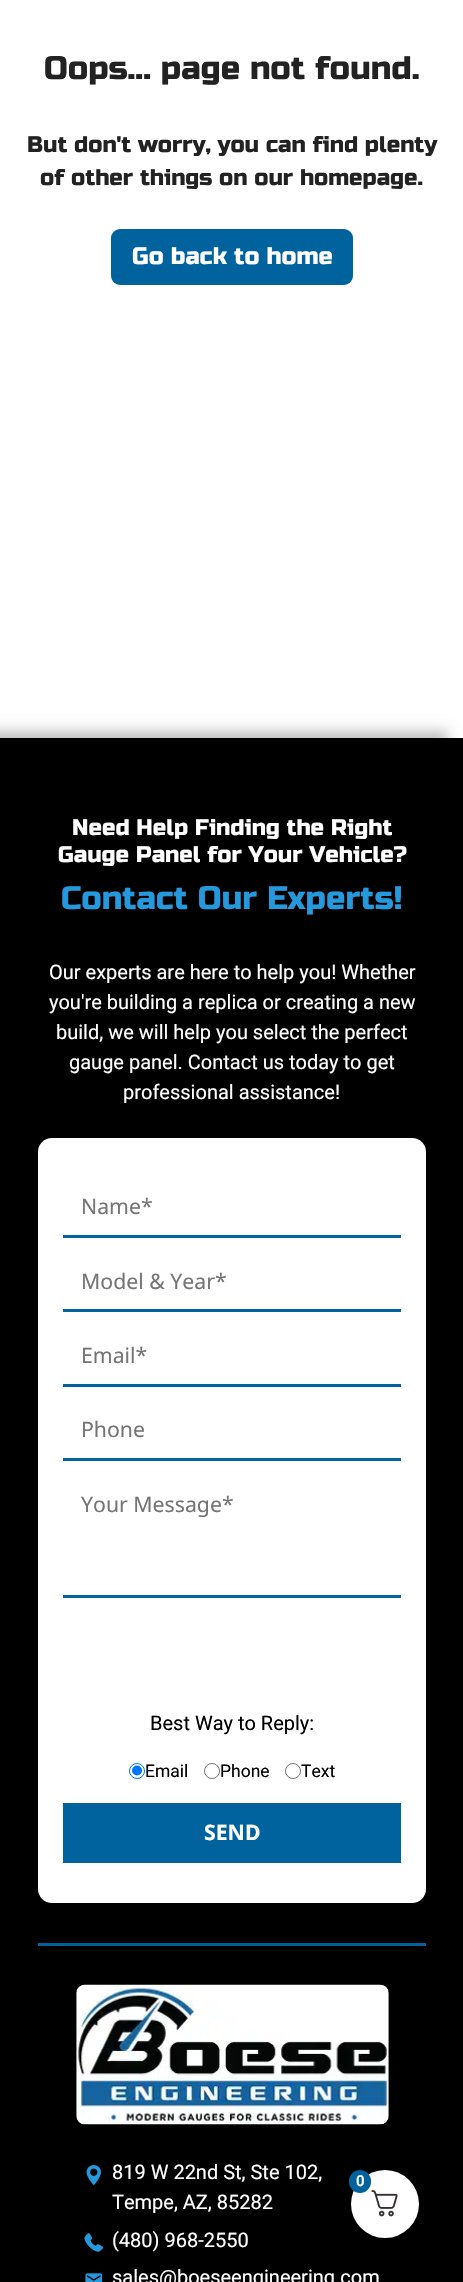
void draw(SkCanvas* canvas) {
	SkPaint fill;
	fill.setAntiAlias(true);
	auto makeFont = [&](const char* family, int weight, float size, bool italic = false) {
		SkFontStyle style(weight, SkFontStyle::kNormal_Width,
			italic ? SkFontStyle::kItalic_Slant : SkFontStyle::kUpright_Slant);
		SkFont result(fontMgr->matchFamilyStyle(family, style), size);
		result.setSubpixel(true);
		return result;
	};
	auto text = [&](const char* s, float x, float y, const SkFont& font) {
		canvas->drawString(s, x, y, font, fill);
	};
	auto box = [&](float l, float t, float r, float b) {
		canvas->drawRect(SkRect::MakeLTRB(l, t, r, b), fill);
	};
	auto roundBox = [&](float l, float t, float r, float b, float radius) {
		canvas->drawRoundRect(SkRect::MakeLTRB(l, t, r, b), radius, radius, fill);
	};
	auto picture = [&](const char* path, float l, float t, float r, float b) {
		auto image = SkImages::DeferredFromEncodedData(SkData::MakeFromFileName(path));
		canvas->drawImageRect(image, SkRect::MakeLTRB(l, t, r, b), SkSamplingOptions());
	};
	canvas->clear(0xFFFFFFFF);
	fill.setColor(0xFF00639E);
	roundBox(111, 229, 353, 285, 9);
	fill.setColor(0x40000000);
	fill.setMaskFilter(SkMaskFilter::MakeBlur(kNormal_SkBlurStyle, 6));
	canvas->drawRect(SkRect::MakeLTRB(-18, 731, 448, 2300), fill);
	fill.setMaskFilter(nullptr);
	fill.setColor(0xFF000000);
	box(0, 738, 463, 2282);
	fill.setColor(0xFF00639E);
	box(38, 1943, 426, 1946);
	fill.setColor(0xA3000000);
	fill.setMaskFilter(SkMaskFilter::MakeBlur(kNormal_SkBlurStyle, 25));
	canvas->drawRoundRect(SkRect::MakeLTRB(38, 1138, 426, 1903), 14, 14, fill);
	fill.setMaskFilter(nullptr);
	fill.setColor(0xFFFFFFFF);
	roundBox(38, 1138, 426, 1903, 14);
	fill.setColor(0xFF00639E);
	box(63, 1235, 401, 1238);
	box(63, 1309, 401, 1312);
	box(63, 1384, 401, 1387);
	box(63, 1458, 401, 1461);
	box(63, 1595, 401, 1598);
	fill.setStyle(SkPaint::kStroke_Style);
	fill.setStrokeWidth(1);
	fill.setColor(0xFF0075FF);
	canvas->drawCircle(137, 1771, 7.5f, fill);
	fill.setStyle(SkPaint::kFill_Style);
	canvas->drawCircle(137, 1770.5f, 5, fill);
	fill.setStyle(SkPaint::kStroke_Style);
	fill.setColor(0xFF767676);
	canvas->drawCircle(212, 1771, 7.5f, fill);
	canvas->drawCircle(293, 1771, 7.5f, fill);
	fill.setStyle(SkPaint::kFill_Style);
	fill.setColor(0xFF00639E);
	box(63, 1803, 401, 1863);
	picture("image0.png", 76, 1984, 389, 2125);
	picture("image1.png", 86, 2165, 101, 2185);
	picture("image2.png", 84, 2233, 104, 2252);
	picture("image3.png", 85, 2273, 103, 2282);
	fill.setColor(0xFFFFFFFF);
	canvas->drawCircle(385, 2204, 34, fill);
	picture("image4.png", 371, 2190, 398, 2217);
	fill.setColor(0xFF00639E);
	roundBox(349, 2170, 371, 2193, 11);
	auto font1 = makeFont("Russo One", 400, 32.5f);
	fill.setColor(0xFF222222);
	text("Oops... page not found.", 44, 79, font1);
	auto font2 = makeFont("Russo One", 400, 22.5f);
	text("But don't worry, you can find plenty", 27, 152, font2);
	text("of other things on our homepage.", 40, 185, font2);
	auto font3 = makeFont("Russo One", 400, 23.75f);
	fill.setColor(0xFFFFFFFF);
	text("Go back to home", 132, 264, font3);
	text("Need Help Finding the Right", 72, 835, font2);
	text("Gauge Panel for Your Vehicle?", 58, 862, font2);
	fill.setColor(0xFF2698DC);
	text("Contact Our Experts!", 61, 909, font1);
	auto font4 = makeFont("Roboto", 400, 20);
	fill.setColor(0xFFFFFFFF);
	text("Our experts are here to help you! Whether", 49, 979, font4);
	text("you're building a replica or creating a new", 49, 1009, font4);
	text("build, we will help you select the perfect", 56, 1039, font4);
	text("gauge panel. Contact us today to get", 69, 1069, font4);
	text("professional assistance!", 123, 1099, font4);
	auto font5 = makeFont("Noto Sans", 400, 21.25f);
	fill.setColor(0xFF757575);
	text("Name*", 81, 1214, font5);
	text("Model & Year*", 81, 1289, font5);
	text("Email*", 81, 1363, font5);
	text("Phone", 81, 1437, font5);
	text("Your Message*", 81, 1512, font5);
	fill.setColor(0xFF000000);
	text("Best Way to Reply:", 150, 1730, font4);
	auto font6 = makeFont("Roboto", 400, 17.5f);
	text("Email", 145, 1777, font6);
	text("Phone", 220, 1777, font6);
	text("Text", 301, 1777, font6);
	auto font7 = makeFont("Noto Sans", 700, 21.25f);
	fill.setColor(0xFFFFFFFF);
	text("SEND", 204, 1840, font7);
	text("819 W 22nd St, Ste 102,", 112, 2179, font4);
	text("Tempe, AZ, 85282", 112, 2209, font4);
	text("(480) 968-2550", 112, 2247, font4);
	text("sales@boeseengineering.com", 112, 2284, font4);
	auto font8 = makeFont("Roboto", 600, 15);
	text("0", 356, 2186, font8);
}
